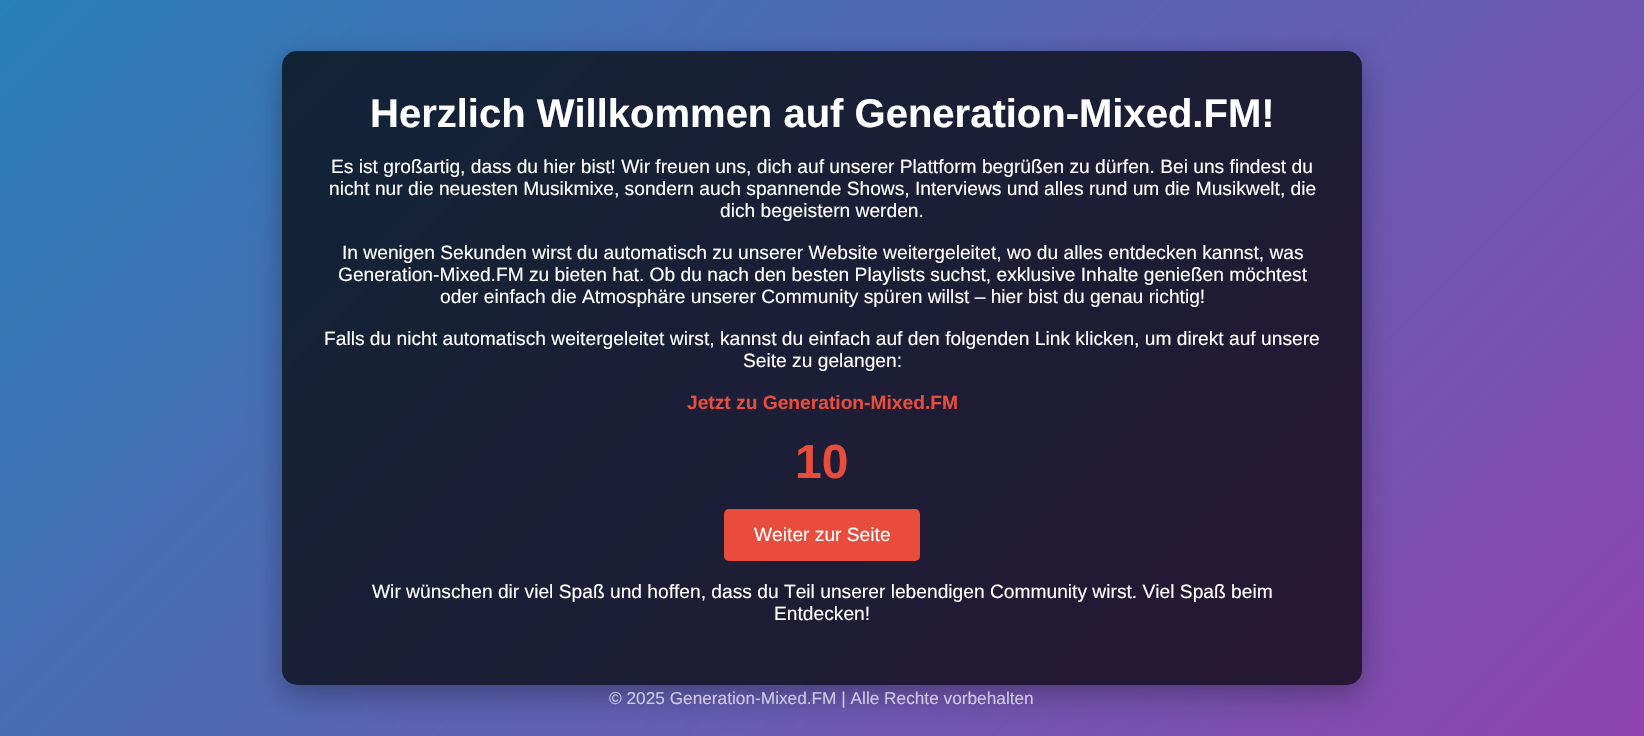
void draw(SkCanvas* canvas) {
	SkPaint fill;
	fill.setAntiAlias(true);
	auto makeFont = [&](const char* family, int weight, float size, bool italic = false) {
		SkFontStyle style(weight, SkFontStyle::kNormal_Width,
			italic ? SkFontStyle::kItalic_Slant : SkFontStyle::kUpright_Slant);
		SkFont result(fontMgr->matchFamilyStyle(family, style), size);
		result.setSubpixel(true);
		return result;
	};
	auto text = [&](const char* s, float x, float y, const SkFont& font) {
		canvas->drawString(s, x, y, font, fill);
	};
	auto box = [&](float l, float t, float r, float b) {
		canvas->drawRect(SkRect::MakeLTRB(l, t, r, b), fill);
	};
	auto roundBox = [&](float l, float t, float r, float b, float radius) {
		canvas->drawRoundRect(SkRect::MakeLTRB(l, t, r, b), radius, radius, fill);
	};
	canvas->clear(0xFFFFFFFF);
	{
		const SkColor colors[] = {0xFF2980B9, 0xFF8E44AD};
		const float stops[] = {0, 1};
		const SkPoint ends[] = {{227, -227}, {1417, 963}};
		fill.setShader(SkGradientShader::MakeLinear(ends, colors, stops, 2, SkTileMode::kClamp));
		fill.setAlpha(255);
	}
	box(0, 0, 1644, 736);
	canvas->save();
	canvas->clipPath(SkPathBuilder(SkPathFillType::kEvenOdd).moveTo(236, 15).lineTo(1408, 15).lineTo(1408, 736).lineTo(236, 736).close().moveTo(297, 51).lineTo(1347, 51).cubicTo(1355.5f, 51, 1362, 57.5f, 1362, 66).lineTo(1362, 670).cubicTo(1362, 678.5f, 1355.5f, 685, 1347, 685).lineTo(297, 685).cubicTo(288.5f, 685, 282, 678.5f, 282, 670).lineTo(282, 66).cubicTo(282, 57.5f, 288.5f, 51, 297, 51).close().detach(), true);
	fill.setShader(nullptr);
	fill.setColor(0x4D000000);
	fill.setMaskFilter(SkMaskFilter::MakeBlur(kNormal_SkBlurStyle, 15));
	canvas->drawRoundRect(SkRect::MakeLTRB(282, 61, 1362, 695), 15, 15, fill);
	fill.setMaskFilter(nullptr);
	canvas->restore();
	fill.setColor(0xB3000000);
	roundBox(282, 51, 1362, 685, 15);
	fill.setColor(0xFFE74C3C);
	roundBox(724, 509, 920, 561, 5);
	auto font1 = makeFont("Liberation Sans", 700, 40);
	fill.setColor(0xFFFFFFFF);
	text("Herzlich Willkommen auf Generation-Mixed.FM!", 370, 127, font1);
	auto font2 = makeFont("Liberation Sans", 400, 19.2f);
	text("Es ist großartig, dass du hier bist! Wir freuen uns, dich auf unserer Plattform begrüßen zu dürfen. Bei uns findest du", 331, 173, font2);
	text("nicht nur die neuesten Musikmixe, sondern auch spannende Shows, Interviews und alles rund um die Musikwelt, die", 329, 195, font2);
	text("dich begeistern werden.", 720, 217, font2);
	text("In wenigen Sekunden wirst du automatisch zu unserer Website weitergeleitet, wo du alles entdecken kannst, was", 342, 259, font2);
	text("Generation-Mixed.FM zu bieten hat. Ob du nach den besten Playlists suchst, exklusive Inhalte genießen möchtest", 338, 281, font2);
	text("oder einfach die Atmosphäre unserer Community spüren willst – hier bist du genau richtig!", 440, 303, font2);
	text("Falls du nicht automatisch weitergeleitet wirst, kannst du einfach auf den folgenden Link klicken, um direkt auf unsere", 324, 345, font2);
	text("Seite zu gelangen:", 743, 367, font2);
	auto font3 = makeFont("Liberation Sans", 700, 19.2f);
	fill.setColor(0xFFE74C3C);
	text("Jetzt zu Generation-Mixed.FM", 687, 409, font3);
	auto font4 = makeFont("Liberation Sans", 700, 48);
	text("10", 795, 478, font4);
	fill.setColor(0xFFFFFFFF);
	text("Weiter zur Seite", 754, 541, font2);
	text("Wir wünschen dir viel Spaß und hoffen, dass du Teil unserer lebendigen Community wirst. Viel Spaß beim", 372, 598, font2);
	text("Entdecken!", 774, 620, font2);
	auto font5 = makeFont("Liberation Sans", 400, 17.25f);
	fill.setColor(0xFFCECAE1);
	text("© 2025 Generation-Mixed.FM | Alle Rechte vorbehalten", 609, 704, font5);
}
